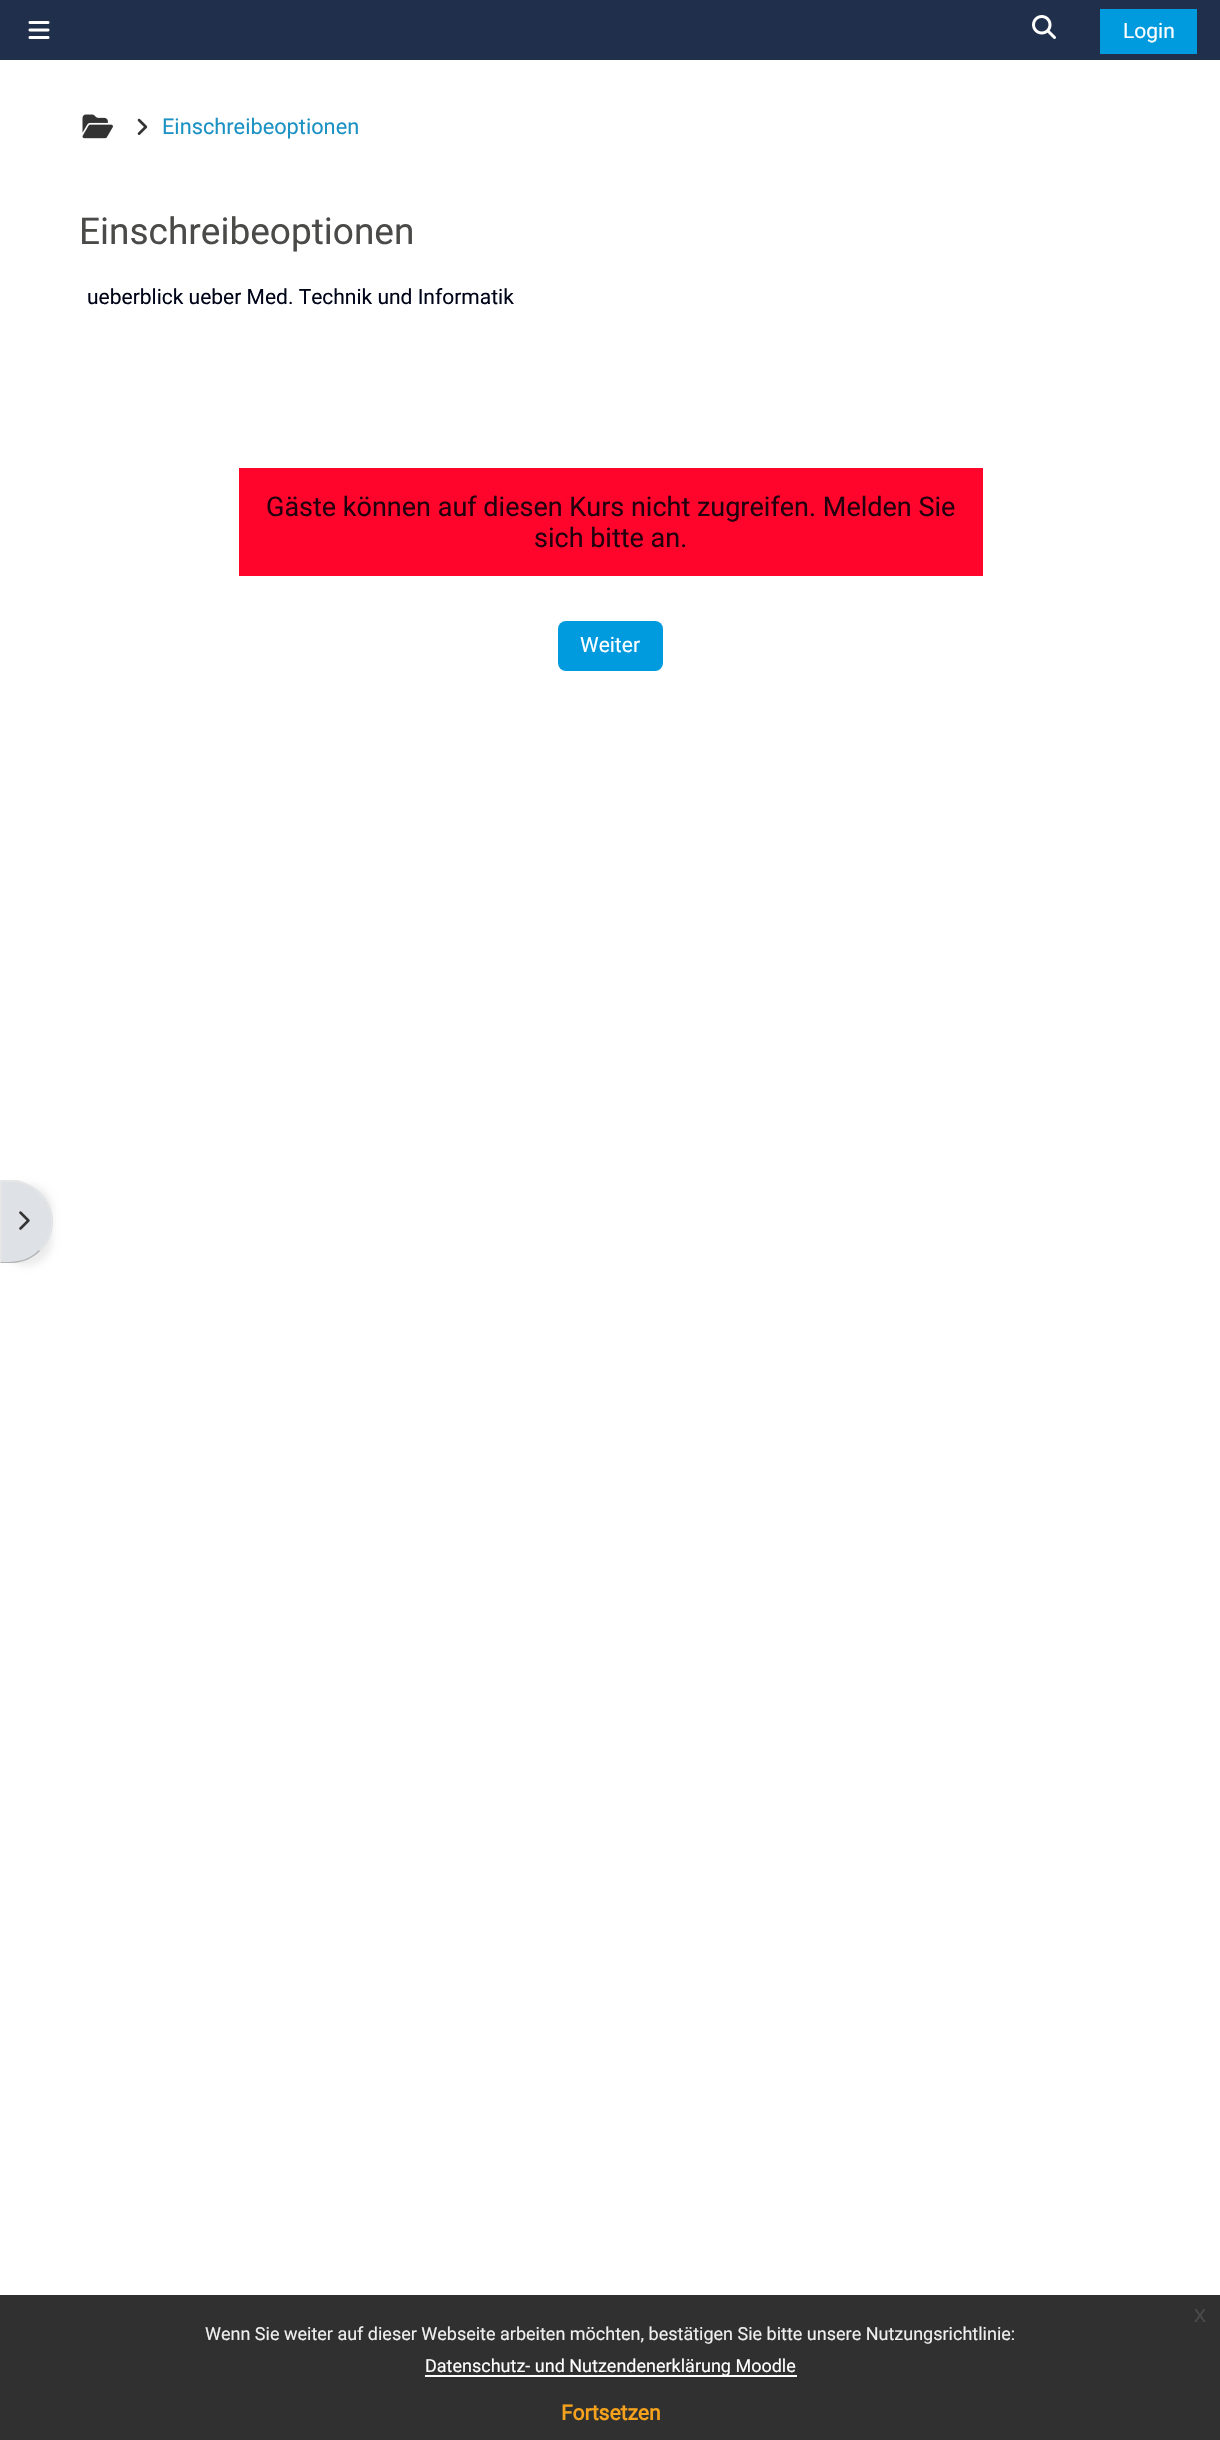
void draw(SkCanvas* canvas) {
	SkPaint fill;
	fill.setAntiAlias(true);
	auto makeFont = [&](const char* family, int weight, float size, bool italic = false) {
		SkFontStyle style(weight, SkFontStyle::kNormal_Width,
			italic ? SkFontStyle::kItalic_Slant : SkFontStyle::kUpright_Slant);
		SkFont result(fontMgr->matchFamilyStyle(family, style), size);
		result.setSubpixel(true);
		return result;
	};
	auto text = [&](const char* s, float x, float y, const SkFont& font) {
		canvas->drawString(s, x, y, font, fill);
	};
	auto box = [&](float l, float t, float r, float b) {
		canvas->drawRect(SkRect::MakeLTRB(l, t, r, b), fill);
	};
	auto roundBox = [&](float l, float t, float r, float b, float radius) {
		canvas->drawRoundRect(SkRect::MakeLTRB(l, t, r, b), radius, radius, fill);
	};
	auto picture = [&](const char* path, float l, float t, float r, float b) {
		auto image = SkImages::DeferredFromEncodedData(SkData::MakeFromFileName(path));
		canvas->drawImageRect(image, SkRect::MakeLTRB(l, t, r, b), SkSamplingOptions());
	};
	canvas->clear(0xFFFFFFFF);
	fill.setColor(0xFF1F2F4C);
	box(0, 0, 1220, 60);
	picture("image0.png", 28, 21, 50, 39);
	picture("image1.png", 1032, 15, 1056, 39);
	fill.setColor(0xFF009BDE);
	box(1100, 9, 1197, 54);
	picture("image2.png", 82, 114, 113, 139);
	picture("image3.png", 137, 118, 148, 135);
	fill.setColor(0xFFFF052C);
	box(239, 468, 983, 576);
	fill.setColor(0xFF009BDE);
	roundBox(558, 621, 663, 671, 8);
	fill.setColor(0x12000000);
	fill.setMaskFilter(SkMaskFilter::MakeBlur(kNormal_SkBlurStyle, 3));
	canvas->drawRoundRect(SkRect::MakeLTRB(0, 1184, 53, 1266), 41, 41, fill);
	fill.setMaskFilter(nullptr);
	fill.setColor(0xFFDEE2E6);
	canvas->drawPath(SkPathBuilder().moveTo(0, 1181).lineTo(12, 1181).cubicTo(34.5f, 1181, 53, 1199.5f, 53, 1222).cubicTo(53, 1244.5f, 34.5f, 1263, 12, 1263).lineTo(0, 1263).close().detach(), fill);
	fill.setColor(0xFFE6E6E6);
	canvas->drawPath(SkPathBuilder().moveTo(2, 1182).lineTo(0, 1180).lineTo(17, 1180).cubicTo(26, 1182, 34, 1186, 40, 1193).lineTo(39, 1194).cubicTo(32, 1186, 22, 1182, 11, 1182).close().detach(), fill);
	canvas->drawPath(SkPathBuilder().moveTo(40, 1193).cubicTo(56, 1209, 56, 1235, 40, 1251).lineTo(39, 1250).cubicTo(55, 1235, 55, 1209, 39, 1194).close().detach(), fill);
	fill.setColor(0xFFB3B3B3);
	canvas->drawPath(SkPathBuilder().moveTo(11, 1263).cubicTo(23, 1263, 33, 1258, 40, 1251).lineTo(39, 1250).cubicTo(28, 1261, 17, 1262, 2, 1262).lineTo(2, 1261).lineTo(0, 1263).close().detach(), fill);
	fill.setColor(0xFFE6E6E6);
	canvas->drawPath(SkPathBuilder().moveTo(0, 1263).lineTo(2, 1261).lineTo(2, 1182).lineTo(0, 1180).close().detach(), fill);
	picture("image4.png", 19, 1211, 30, 1230);
	fill.setColor(0xFF303030);
	box(0, 2295, 1220, 2440);
	fill.setColor(0xFFFFFFFF);
	box(425, 2375, 797, 2377);
	auto font1 = makeFont("Roboto", 400, 21);
	text("Login", 1123, 38, font1);
	auto font2 = makeFont("Roboto", 400, 21.75f);
	fill.setColor(0xFF1C92C4);
	text("Einschreibeoptionen", 162, 134, font2);
	auto font3 = makeFont("Roboto", 400, 37);
	fill.setColor(0xFF4A4A49);
	text("Einschreibeoptionen", 79, 244, font3);
	fill.setColor(0xFF000419);
	text("ueberblick ueber Med. Technik und Informatik", 87, 304, font1);
	auto font4 = makeFont("Roboto", 400, 27);
	fill.setColor(0xFF23000E);
	text("Gäste können auf diesen Kurs nicht zugreifen. Melden Sie", 266, 516, font4);
	text("sich bitte an.", 534, 547, font4);
	fill.setColor(0xFFFFFFFF);
	text("Weiter", 580, 652, font1);
	auto font5 = makeFont("Liberation Sans", 400, 24);
	fill.setColor(0xFF4A4A49);
	text("x", 1194, 2322, font5);
	auto font6 = makeFont("Roboto", 400, 18);
	fill.setColor(0xFFEFEFEF);
	text("Wenn Sie weiter auf dieser Webseite arbeiten möchten, bestätigen Sie bitte unsere Nutzungsrichtlinie:", 205, 2340, font6);
	fill.setColor(0xFFFFFFFF);
	text("Datenschutz- und Nutzendenerklärung Moodle", 425, 2372, font6);
	auto font7 = makeFont("Roboto", 700, 21);
	fill.setColor(0xFFF6A21D);
	text("Fortsetzen", 561, 2420, font7);
}
